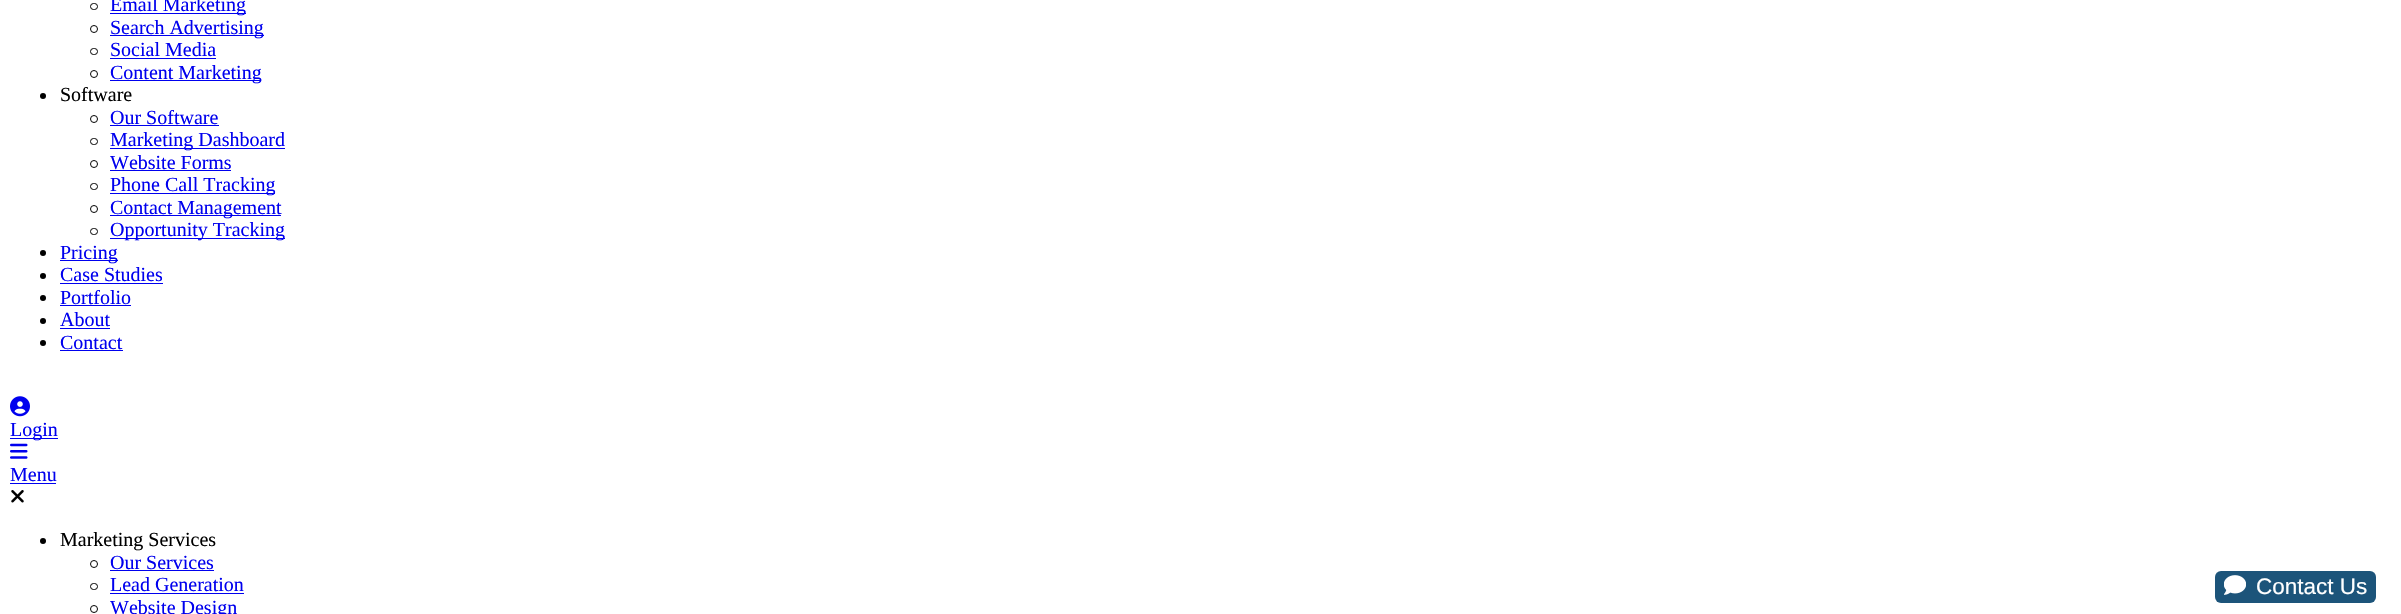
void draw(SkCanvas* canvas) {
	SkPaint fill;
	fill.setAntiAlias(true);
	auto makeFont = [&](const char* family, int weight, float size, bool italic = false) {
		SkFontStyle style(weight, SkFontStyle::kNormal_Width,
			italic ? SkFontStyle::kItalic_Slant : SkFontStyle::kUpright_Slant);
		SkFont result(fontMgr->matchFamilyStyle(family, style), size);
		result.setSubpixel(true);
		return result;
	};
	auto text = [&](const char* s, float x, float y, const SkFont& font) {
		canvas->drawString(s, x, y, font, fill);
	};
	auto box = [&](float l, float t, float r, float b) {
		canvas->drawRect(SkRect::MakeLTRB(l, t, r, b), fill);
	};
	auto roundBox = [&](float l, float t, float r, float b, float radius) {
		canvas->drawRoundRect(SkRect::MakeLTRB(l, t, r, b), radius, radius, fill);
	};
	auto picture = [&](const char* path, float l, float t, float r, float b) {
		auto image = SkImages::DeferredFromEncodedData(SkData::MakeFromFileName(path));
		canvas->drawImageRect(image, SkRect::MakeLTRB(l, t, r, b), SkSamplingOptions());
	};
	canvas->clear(0xFFFFFFFF);
	fill.setStyle(SkPaint::kStroke_Style);
	fill.setStrokeWidth(1);
	fill.setColor(0xFF000000);
	canvas->drawRoundRect(SkRect::MakeLTRB(90.5f, 3.5f, 97.5f, 9.5f), 3, 3, fill);
	fill.setStyle(SkPaint::kFill_Style);
	fill.setColor(0xFF0000EE);
	box(110, 13, 246, 14);
	fill.setStyle(SkPaint::kStroke_Style);
	fill.setColor(0xFF000000);
	canvas->drawCircle(94, 29, 3.5f, fill);
	fill.setStyle(SkPaint::kFill_Style);
	fill.setColor(0xFF0000EE);
	box(110, 35, 264, 36);
	fill.setStyle(SkPaint::kStroke_Style);
	fill.setColor(0xFF000000);
	canvas->drawRoundRect(SkRect::MakeLTRB(90.5f, 48.5f, 97.5f, 54.5f), 3, 3, fill);
	fill.setStyle(SkPaint::kFill_Style);
	fill.setColor(0xFF0000EE);
	box(110, 58, 216, 59);
	fill.setStyle(SkPaint::kStroke_Style);
	fill.setColor(0xFF000000);
	canvas->drawCircle(94, 74, 3.5f, fill);
	fill.setStyle(SkPaint::kFill_Style);
	fill.setColor(0xFF0000EE);
	box(110, 80, 261, 81);
	fill.setColor(0xFF000000);
	canvas->drawCircle(43, 96, 3, fill);
	fill.setStyle(SkPaint::kStroke_Style);
	canvas->drawCircle(94, 119, 3.5f, fill);
	fill.setStyle(SkPaint::kFill_Style);
	fill.setColor(0xFF0000EE);
	box(110, 125, 219, 126);
	fill.setStyle(SkPaint::kStroke_Style);
	fill.setColor(0xFF000000);
	canvas->drawRoundRect(SkRect::MakeLTRB(90.5f, 138.5f, 97.5f, 144.5f), 3, 3, fill);
	fill.setStyle(SkPaint::kFill_Style);
	fill.setColor(0xFF0000EE);
	box(110, 148, 285, 149);
	fill.setStyle(SkPaint::kStroke_Style);
	fill.setColor(0xFF000000);
	canvas->drawCircle(94, 164, 3.5f, fill);
	fill.setStyle(SkPaint::kFill_Style);
	fill.setColor(0xFF0000EE);
	box(110, 170, 231, 171);
	fill.setStyle(SkPaint::kStroke_Style);
	fill.setColor(0xFF000000);
	canvas->drawRoundRect(SkRect::MakeLTRB(90.5f, 183.5f, 97.5f, 189.5f), 3, 3, fill);
	fill.setStyle(SkPaint::kFill_Style);
	fill.setColor(0xFF0000EE);
	box(110, 193, 275, 194);
	fill.setStyle(SkPaint::kStroke_Style);
	fill.setColor(0xFF000000);
	canvas->drawCircle(94, 209, 3.5f, fill);
	fill.setStyle(SkPaint::kFill_Style);
	fill.setColor(0xFF0000EE);
	box(110, 215, 281, 216);
	fill.setStyle(SkPaint::kStroke_Style);
	fill.setColor(0xFF000000);
	canvas->drawRoundRect(SkRect::MakeLTRB(90.5f, 228.5f, 97.5f, 234.5f), 3, 3, fill);
	fill.setStyle(SkPaint::kFill_Style);
	fill.setColor(0xFF0000EE);
	box(110, 238, 285, 239);
	fill.setColor(0xFF000000);
	canvas->drawCircle(43, 253, 3, fill);
	fill.setColor(0xFF0000EE);
	box(60, 260, 118, 261);
	fill.setColor(0xFF000000);
	canvas->drawCircle(43, 276, 3, fill);
	fill.setColor(0xFF0000EE);
	box(60, 283, 163, 284);
	fill.setColor(0xFF000000);
	canvas->drawCircle(43, 298, 3, fill);
	fill.setColor(0xFF0000EE);
	box(60, 305, 131, 306);
	fill.setColor(0xFF000000);
	canvas->drawCircle(43, 321, 3, fill);
	fill.setColor(0xFF0000EE);
	box(60, 328, 110, 329);
	fill.setColor(0xFF000000);
	canvas->drawCircle(43, 343, 3, fill);
	fill.setColor(0xFF0000EE);
	box(60, 350, 123, 351);
	picture("image0.png", 10, 396, 30, 417);
	box(10, 438, 58, 439);
	picture("image1.png", 10, 443, 28, 459);
	box(10, 483, 56, 484);
	picture("image2.png", 11, 490, 24, 503);
	fill.setColor(0xFF000000);
	canvas->drawCircle(43, 541, 3, fill);
	fill.setStyle(SkPaint::kStroke_Style);
	canvas->drawCircle(94, 564, 3.5f, fill);
	fill.setStyle(SkPaint::kFill_Style);
	fill.setColor(0xFF0000EE);
	box(110, 570, 214, 571);
	fill.setStyle(SkPaint::kStroke_Style);
	fill.setColor(0xFF000000);
	canvas->drawRoundRect(SkRect::MakeLTRB(90.5f, 583.5f, 97.5f, 589.5f), 3, 3, fill);
	fill.setStyle(SkPaint::kFill_Style);
	fill.setColor(0xFF0000EE);
	box(110, 593, 244, 594);
	fill.setStyle(SkPaint::kStroke_Style);
	fill.setColor(0xFF000000);
	canvas->drawCircle(94, 609, 3.5f, fill);
	fill.setStyle(SkPaint::kFill_Style);
	fill.setColor(0xFF1C547A);
	roundBox(2215, 571, 2376, 603, 6);
	picture("image3.png", 2224, 575, 2246, 595);
	auto font1 = makeFont("Liberation Serif", 400, 20);
	fill.setColor(0xFF0000EE);
	text("Email Marketing", 110, 11, font1);
	text("Search Advertising", 110, 34, font1);
	text("Social Media", 110, 56, font1);
	text("Content Marketing", 110, 79, font1);
	fill.setColor(0xFF000000);
	text("Software", 60, 101, font1);
	fill.setColor(0xFF0000EE);
	text("Our Software", 110, 124, font1);
	text("Marketing Dashboard", 110, 146, font1);
	text("Website Forms", 110, 169, font1);
	text("Phone Call Tracking", 110, 191, font1);
	text("Contact Management", 110, 214, font1);
	text("Opportunity Tracking", 110, 236, font1);
	text("Pricing", 60, 259, font1);
	text("Case Studies", 60, 281, font1);
	text("Portfolio", 60, 304, font1);
	text("About", 60, 326, font1);
	text("Contact", 60, 349, font1);
	text("Login", 10, 436, font1);
	text("Menu", 10, 481, font1);
	fill.setColor(0xFF000000);
	text("Marketing Services", 60, 546, font1);
	fill.setColor(0xFF0000EE);
	text("Our Services", 110, 569, font1);
	text("Lead Generation", 110, 591, font1);
	text("Website Design", 110, 614, font1);
	auto font2 = makeFont("Liberation Sans", 400, 22.5f);
	fill.setColor(0xFFFFFFFF);
	text("Contact Us", 2256, 594, font2);
}
